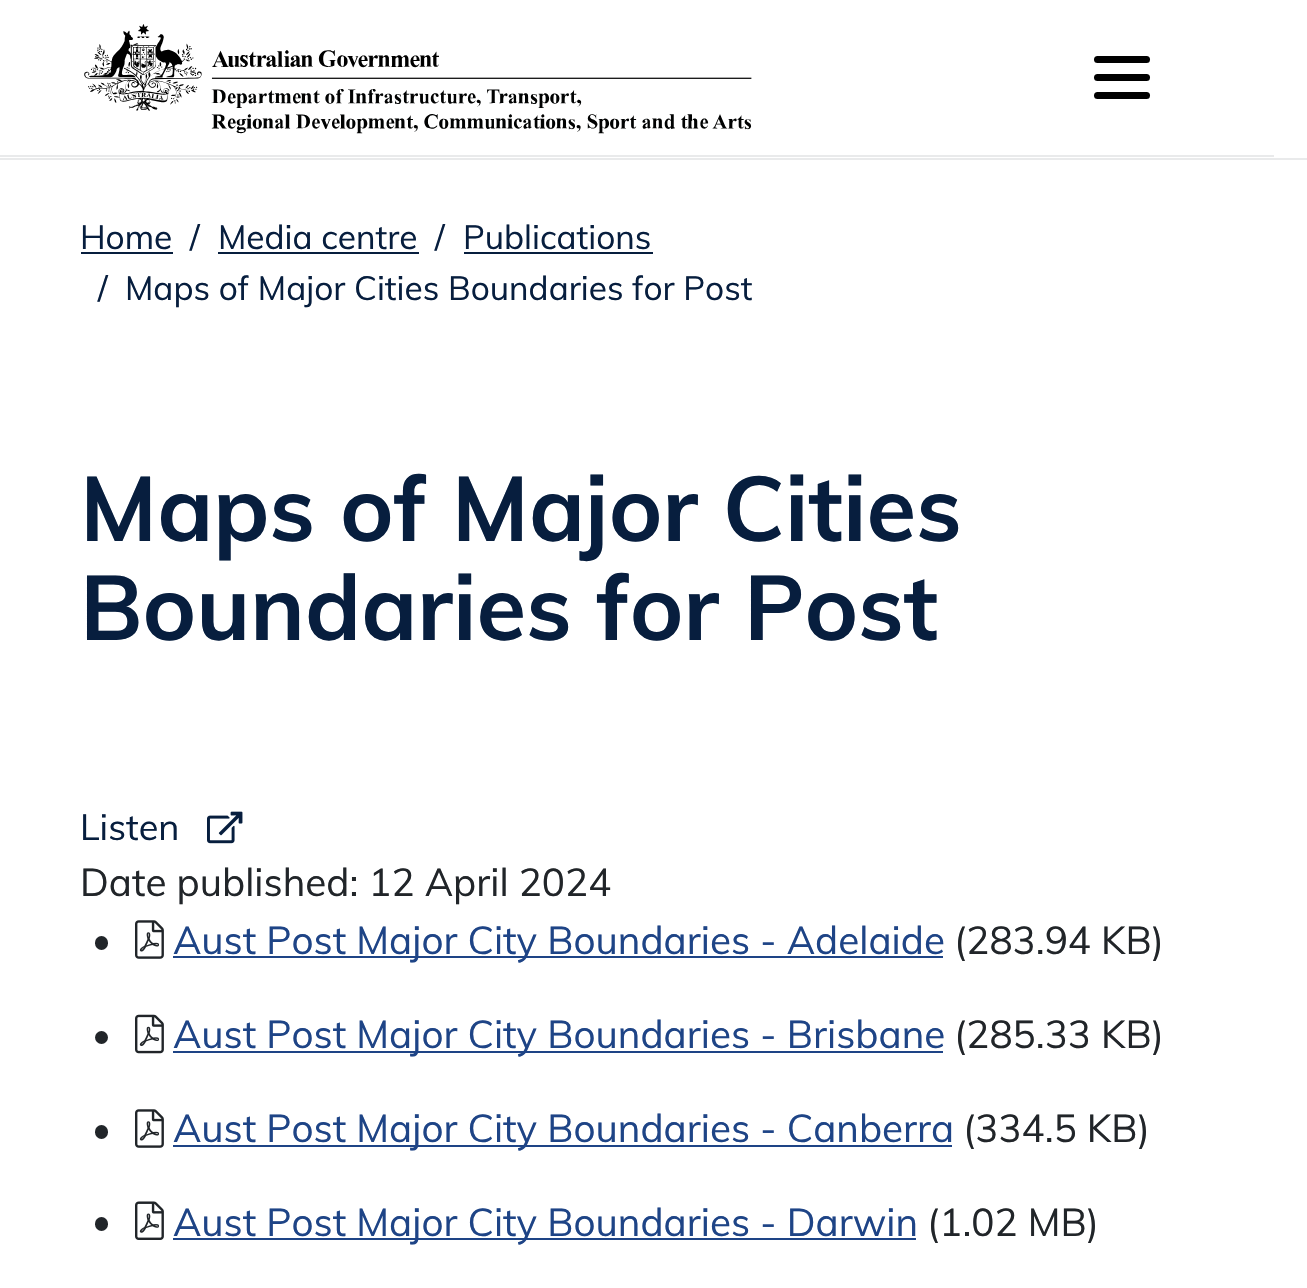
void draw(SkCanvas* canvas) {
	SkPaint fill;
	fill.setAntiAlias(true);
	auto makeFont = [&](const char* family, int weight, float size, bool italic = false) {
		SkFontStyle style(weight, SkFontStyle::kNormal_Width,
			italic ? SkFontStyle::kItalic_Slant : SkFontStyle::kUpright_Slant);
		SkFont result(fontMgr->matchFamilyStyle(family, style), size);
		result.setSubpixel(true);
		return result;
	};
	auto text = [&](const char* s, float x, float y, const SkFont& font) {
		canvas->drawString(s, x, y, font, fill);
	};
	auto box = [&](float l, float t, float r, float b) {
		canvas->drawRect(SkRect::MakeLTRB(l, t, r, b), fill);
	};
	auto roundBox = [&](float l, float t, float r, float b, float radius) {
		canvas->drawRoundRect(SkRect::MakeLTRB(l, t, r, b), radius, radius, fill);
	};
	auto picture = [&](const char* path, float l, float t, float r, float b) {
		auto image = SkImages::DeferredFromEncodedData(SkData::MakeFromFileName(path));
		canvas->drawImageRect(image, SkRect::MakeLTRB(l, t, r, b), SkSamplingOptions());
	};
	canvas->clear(0xFFFFFFFF);
	fill.setColor(0xFFE9EAEB);
	box(0, 158, 1307, 160);
	picture("image0.png", 84, 24, 752, 134);
	fill.setColor(0xFF000000);
	roundBox(1094, 74, 1150, 81, 3.5f);
	roundBox(1094, 56, 1150, 63, 3.5f);
	roundBox(1094, 92, 1150, 99, 3.5f);
	fill.setColor(0xFFE9EAEB);
	box(0, 155, 1274, 157);
	fill.setColor(0xFF071E3E);
	box(81, 252, 173, 254);
	box(218, 252, 419, 254);
	box(464, 252, 653, 254);
	picture("image1.png", 207, 811, 243, 844);
	fill.setColor(0xFF212529);
	roundBox(95, 936, 108, 950, 6.5f);
	picture("image2.png", 135, 920, 164, 959);
	fill.setColor(0xFF1E4486);
	box(173, 956, 943, 958);
	fill.setColor(0xFF212529);
	canvas->drawCircle(101.5f, 1037.5f, 6.5f, fill);
	picture("image3.png", 135, 1014, 164, 1054);
	fill.setColor(0xFF1E4486);
	box(173, 1051, 943, 1053);
	fill.setColor(0xFF212529);
	roundBox(95, 1125, 108, 1139, 6.5f);
	picture("image2.png", 135, 1109, 164, 1148);
	fill.setColor(0xFF1E4486);
	box(173, 1145, 952, 1147);
	fill.setColor(0xFF212529);
	roundBox(95, 1217, 108, 1231, 6.5f);
	picture("image4.png", 135, 1201, 164, 1240);
	fill.setColor(0xFF1E4486);
	box(173, 1238, 916, 1240);
	auto font1 = makeFont("Muli", 400, 33.4f);
	fill.setColor(0xFF071E3E);
	text("Home", 80, 249, font1);
	text("/", 190, 249, font1);
	text("Media centre", 218, 249, font1);
	text("/", 435, 249, font1);
	text("Publications", 463, 249, font1);
	text("/", 98, 300, font1);
	text("Maps of Major Cities Boundaries for Post", 125, 300, font1);
	auto font2 = makeFont("Muli", 700, 90.75f);
	text("Maps of Major Cities", 80, 541, font2);
	text("Boundaries for Post", 80, 640, font2);
	auto font3 = makeFont("Muli", 400, 36);
	text("Listen", 80, 840, font3);
	auto font4 = makeFont("Muli", 400, 38.6f);
	fill.setColor(0xFF212529);
	text("Date published: 12 April 2024", 80, 896, font4);
	fill.setColor(0xFF1E4486);
	text("Aust Post Major City Boundaries - Adelaide", 173, 954, font4);
	fill.setColor(0xFF212529);
	text("(283.94 KB)", 954, 954, font4);
	fill.setColor(0xFF1E4486);
	text("Aust Post Major City Boundaries - Brisbane", 173, 1048, font4);
	fill.setColor(0xFF212529);
	text("(285.33 KB)", 954, 1048, font4);
	fill.setColor(0xFF1E4486);
	text("Aust Post Major City Boundaries - Canberra", 173, 1142, font4);
	fill.setColor(0xFF212529);
	text("(334.5 KB)", 963, 1142, font4);
	fill.setColor(0xFF1E4486);
	text("Aust Post Major City Boundaries - Darwin", 173, 1236, font4);
	fill.setColor(0xFF212529);
	text("(1.02 MB)", 927, 1236, font4);
}
